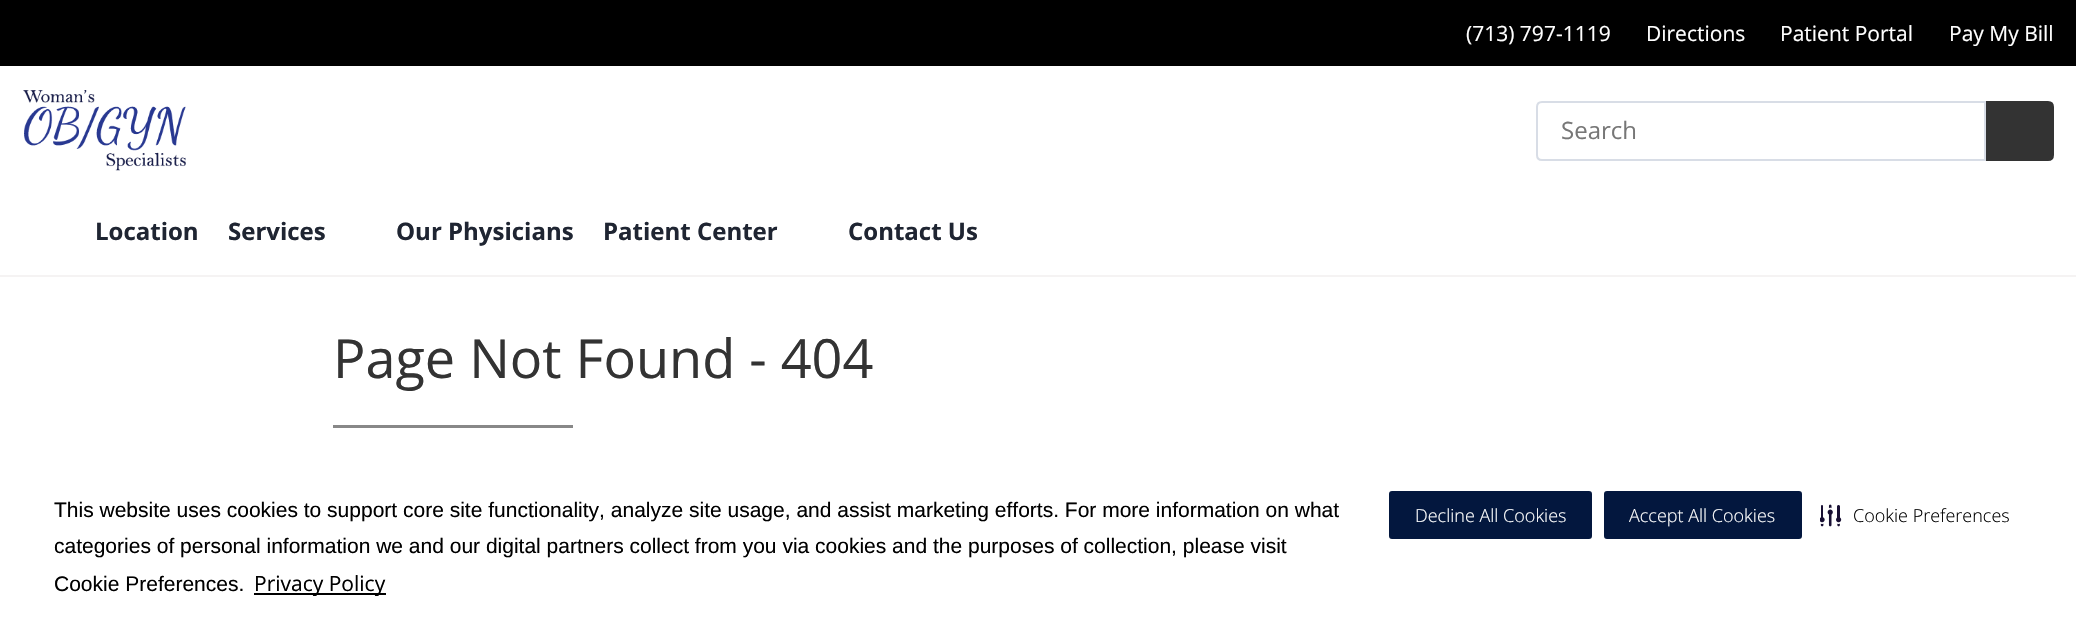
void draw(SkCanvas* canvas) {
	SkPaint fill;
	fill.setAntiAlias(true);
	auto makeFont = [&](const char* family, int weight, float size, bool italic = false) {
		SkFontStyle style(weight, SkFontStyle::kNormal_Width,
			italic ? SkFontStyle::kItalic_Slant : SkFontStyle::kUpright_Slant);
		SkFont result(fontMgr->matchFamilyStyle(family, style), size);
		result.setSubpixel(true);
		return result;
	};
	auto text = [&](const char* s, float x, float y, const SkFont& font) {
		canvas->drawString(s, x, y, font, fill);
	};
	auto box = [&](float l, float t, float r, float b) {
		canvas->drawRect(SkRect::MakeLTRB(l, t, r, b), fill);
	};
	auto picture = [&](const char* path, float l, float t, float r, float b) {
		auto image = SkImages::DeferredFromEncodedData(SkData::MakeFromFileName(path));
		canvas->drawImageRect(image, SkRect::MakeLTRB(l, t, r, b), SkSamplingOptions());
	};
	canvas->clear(0xFFFFFFFF);
	fill.setColor(0xFF000000);
	box(0, 0, 2076, 66);
	picture("image0.png", 23, 90, 186, 171);
	fill.setColor(0xFF333333);
	canvas->drawPath(SkPathBuilder().moveTo(1986, 102).lineTo(2048, 102).cubicTo(2051, 102, 2053, 104, 2053, 107).lineTo(2053, 155).cubicTo(2053, 158, 2051, 160, 2048, 160).lineTo(1986, 160).close().detach(), fill);
	fill.setStyle(SkPaint::kStroke_Style);
	fill.setStrokeWidth(2);
	canvas->drawPath(SkPathBuilder().moveTo(1986, 102).lineTo(2048, 102).cubicTo(2051, 102, 2053, 104, 2053, 107).lineTo(2053, 155).cubicTo(2053, 158, 2051, 160, 2048, 160).lineTo(1986, 160).close().detach(), fill);
	fill.setStyle(SkPaint::kFill_Style);
	fill.setColor(0xFFFFFFFF);
	canvas->drawPath(SkPathBuilder().moveTo(1542, 102).lineTo(1985, 102).lineTo(1985, 160).lineTo(1542, 160).cubicTo(1539, 160, 1537, 158, 1537, 155).lineTo(1537, 107).cubicTo(1537, 104, 1539, 102, 1542, 102).close().detach(), fill);
	fill.setStyle(SkPaint::kStroke_Style);
	fill.setColor(0xFFD8DDE6);
	canvas->drawPath(SkPathBuilder().moveTo(1542, 102).lineTo(1985, 102).lineTo(1985, 160).lineTo(1542, 160).cubicTo(1539, 160, 1537, 158, 1537, 155).lineTo(1537, 107).cubicTo(1537, 104, 1539, 102, 1542, 102).close().detach(), fill);
	fill.setStyle(SkPaint::kFill_Style);
	fill.setColor(0xFFF5F3F3);
	box(0, 275, 2076, 277);
	fill.setColor(0xFF888888);
	box(333, 425, 573, 428);
	fill.setColor(0xFF000000);
	box(254, 593, 386, 595);
	fill.setColor(0xFF03173E);
	canvas->drawRoundRect(SkRect::MakeLTRB(1390, 492, 1591, 538), 2, 2, fill);
	fill.setStyle(SkPaint::kStroke_Style);
	canvas->drawRoundRect(SkRect::MakeLTRB(1390, 492, 1591, 538), 2, 2, fill);
	fill.setStyle(SkPaint::kFill_Style);
	canvas->drawRoundRect(SkRect::MakeLTRB(1605, 492, 1801, 538), 2, 2, fill);
	fill.setStyle(SkPaint::kStroke_Style);
	canvas->drawRoundRect(SkRect::MakeLTRB(1605, 492, 1801, 538), 2, 2, fill);
	picture("image1.png", 1820, 504, 1842, 527);
	auto font1 = makeFont("Open Sans", 400, 21);
	fill.setStyle(SkPaint::kFill_Style);
	fill.setColor(0xFFFFFFFF);
	text("(713) 797-1119", 1466, 41, font1);
	text("Directions", 1646, 41, font1);
	text("Patient Portal", 1780, 41, font1);
	text("Pay My Bill", 1949, 41, font1);
	auto font2 = makeFont("Open Sans", 400, 24);
	fill.setColor(0xFF777777);
	text("Search", 1561, 139, font2);
	auto font3 = makeFont("Open Sans", 700, 24);
	fill.setColor(0xFF1F2532);
	text("Location", 95, 240, font3);
	text("Services", 228, 240, font3);
	text("Our Physicians", 396, 240, font3);
	text("Patient Center", 603, 240, font3);
	text("Contact Us", 848, 240, font3);
	auto font4 = makeFont("Open Sans", 400, 54);
	fill.setColor(0xFF333333);
	text("Page Not Found - 404", 333, 378, font4);
	auto font5 = makeFont("Liberation Sans", 400, 21);
	fill.setColor(0xFF000000);
	text("This website uses cookies to support core site functionality, analyze site usage, and assist marketing efforts. For more information on what", 54, 517, font5);
	text("categories of personal information we and our digital partners collect from you via cookies and the purposes of collection, please visit", 54, 553, font5);
	text("Cookie Preferences.", 54, 591, font5);
	text("Privacy Policy", 254, 591, font1);
	auto font6 = makeFont("Open Sans", 300, 18);
	fill.setColor(0xFFFFFFFF);
	text("Decline All Cookies", 1415, 522, font6);
	text("Accept All Cookies", 1629, 522, font6);
	fill.setColor(0xFF000000);
	text("Cookie Preferences", 1853, 522, font6);
}
